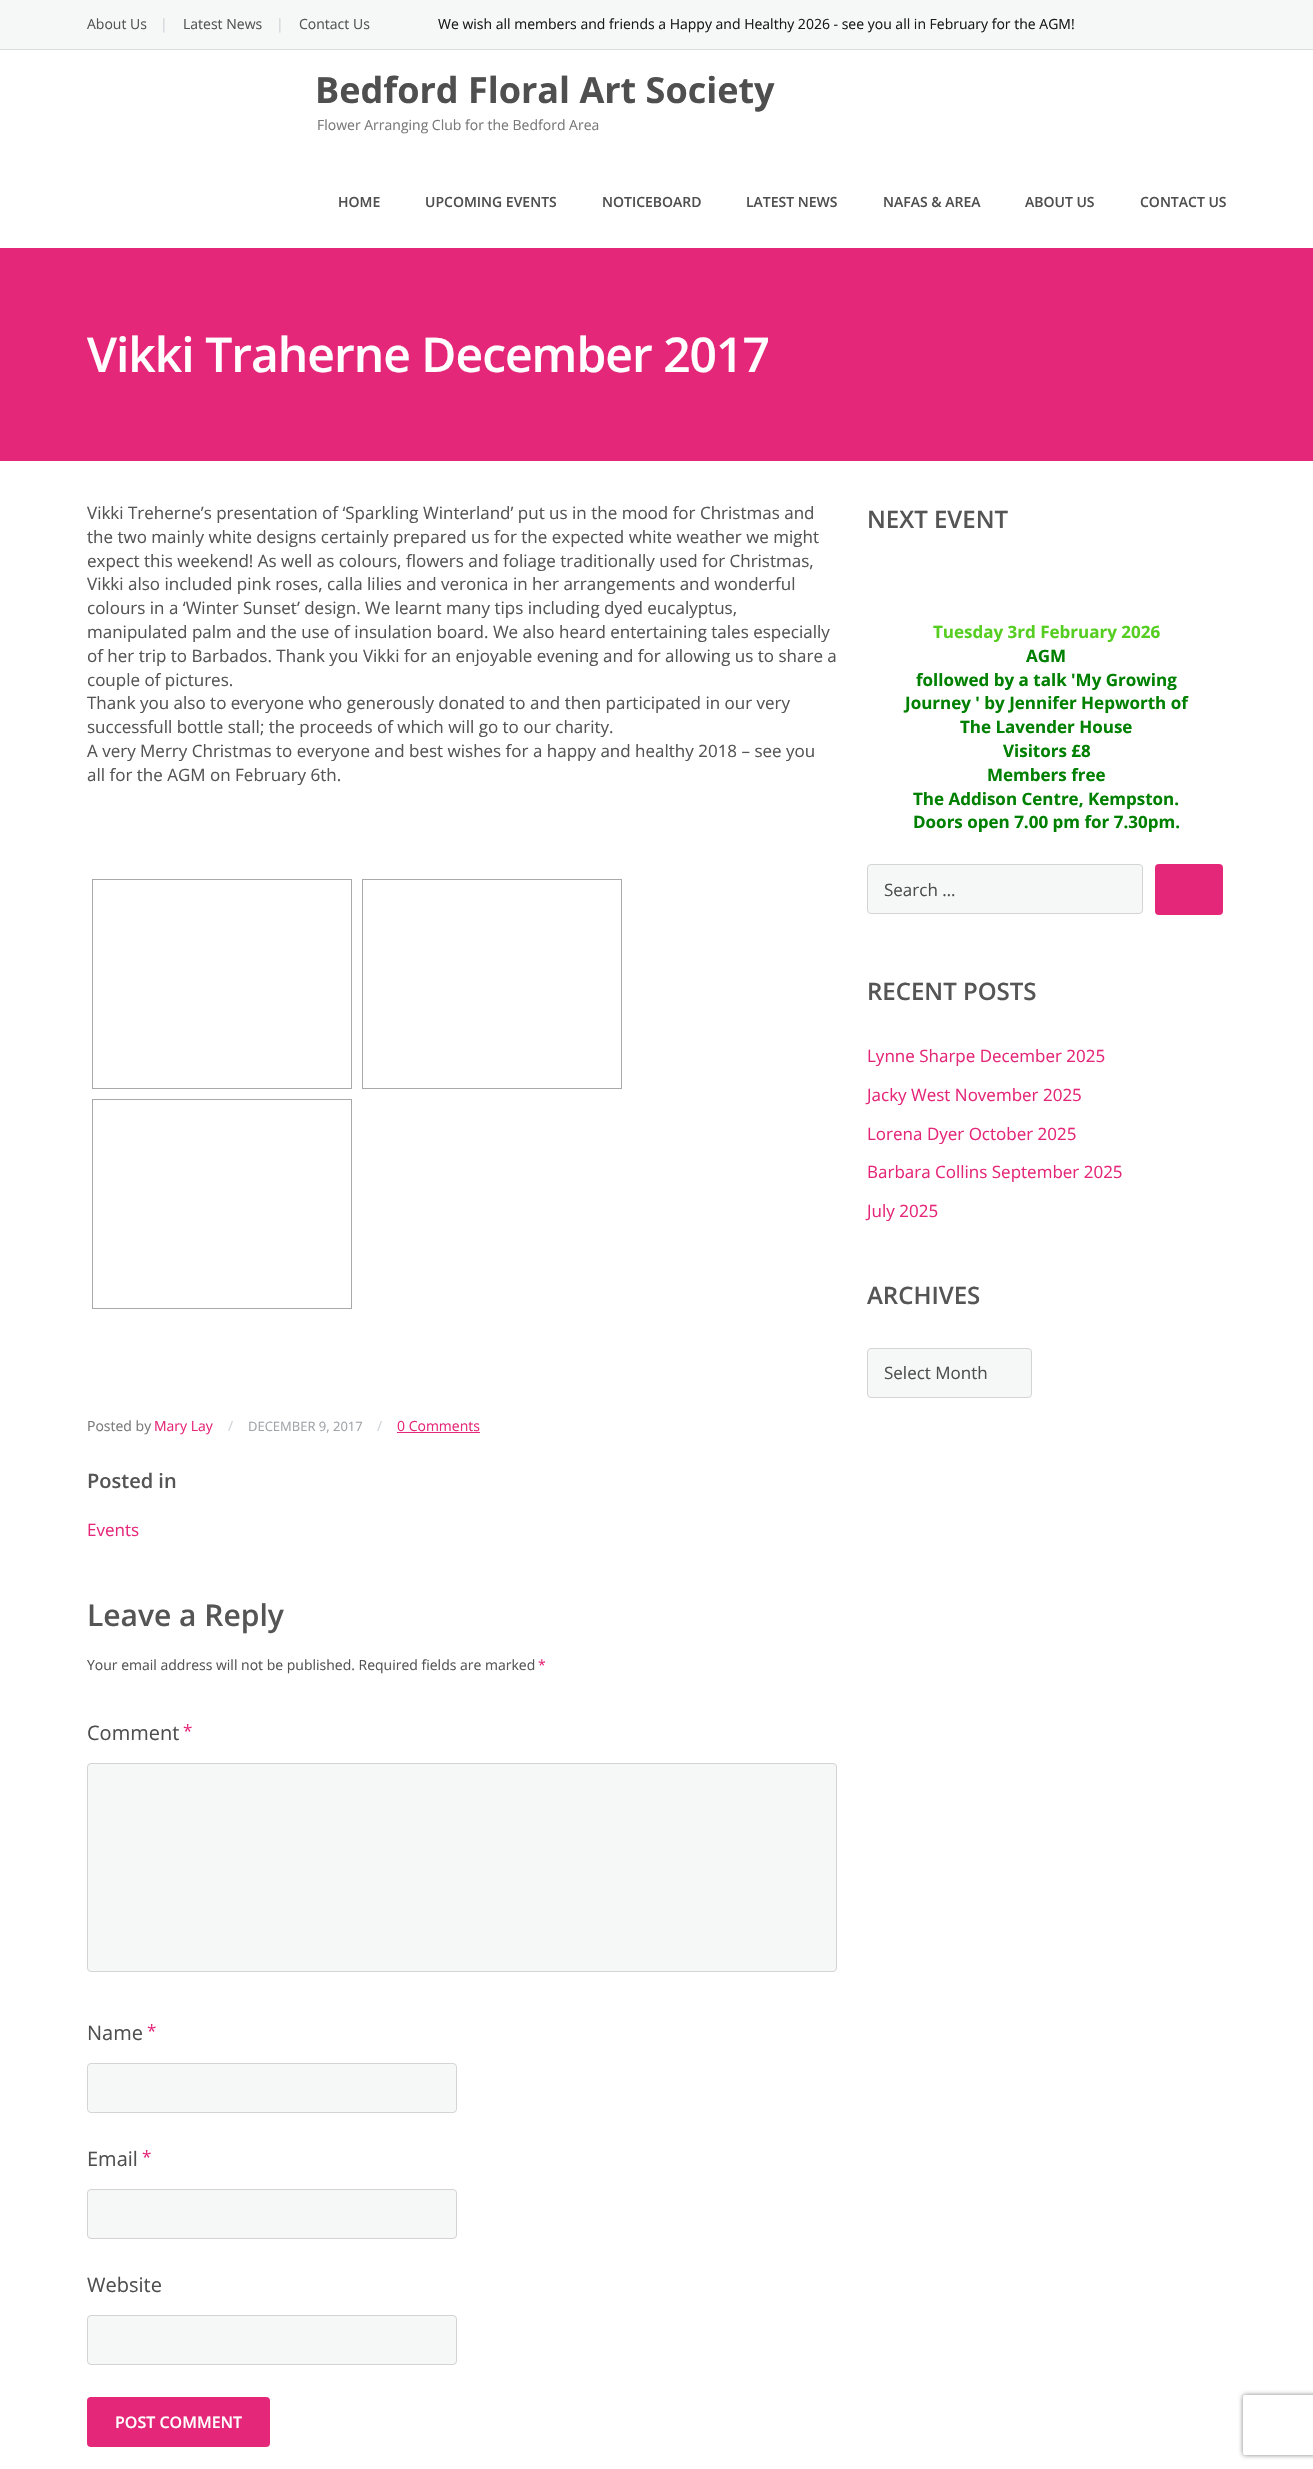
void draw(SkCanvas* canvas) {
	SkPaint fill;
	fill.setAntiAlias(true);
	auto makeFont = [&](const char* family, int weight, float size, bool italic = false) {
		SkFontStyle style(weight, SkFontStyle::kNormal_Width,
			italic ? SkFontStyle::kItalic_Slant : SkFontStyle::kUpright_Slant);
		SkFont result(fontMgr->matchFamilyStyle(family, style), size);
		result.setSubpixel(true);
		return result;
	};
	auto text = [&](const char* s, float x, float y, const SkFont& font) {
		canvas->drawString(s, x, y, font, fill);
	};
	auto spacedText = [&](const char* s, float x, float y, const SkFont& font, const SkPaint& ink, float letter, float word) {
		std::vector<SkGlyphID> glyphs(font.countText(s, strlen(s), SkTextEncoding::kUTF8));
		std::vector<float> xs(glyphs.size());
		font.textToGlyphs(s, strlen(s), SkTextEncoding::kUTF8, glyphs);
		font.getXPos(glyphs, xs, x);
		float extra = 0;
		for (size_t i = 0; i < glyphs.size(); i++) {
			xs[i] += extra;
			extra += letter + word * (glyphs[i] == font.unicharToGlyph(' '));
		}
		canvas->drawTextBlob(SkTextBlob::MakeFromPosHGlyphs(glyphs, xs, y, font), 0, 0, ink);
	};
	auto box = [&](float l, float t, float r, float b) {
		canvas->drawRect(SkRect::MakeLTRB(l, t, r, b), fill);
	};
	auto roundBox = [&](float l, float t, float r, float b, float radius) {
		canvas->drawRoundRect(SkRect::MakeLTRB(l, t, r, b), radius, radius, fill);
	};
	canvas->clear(0xFFFFFFFF);
	fill.setColor(0xFFF6F7F7);
	box(0, 0, 1313, 49);
	fill.setColor(0xFFD9DDE0);
	box(0, 49, 1313, 50);
	fill.setColor(0xFFE52779);
	box(0, 248, 1313, 461);
	fill.setStyle(SkPaint::kStroke_Style);
	fill.setStrokeWidth(1);
	fill.setColor(0xFFA9A9A9);
	canvas->drawRect(SkRect::MakeLTRB(92.5f, 879.5f, 351.5f, 1088.5f), fill);
	canvas->drawRect(SkRect::MakeLTRB(362.5f, 879.5f, 621.5f, 1088.5f), fill);
	canvas->drawRect(SkRect::MakeLTRB(92.5f, 1099.5f, 351.5f, 1308.5f), fill);
	fill.setStyle(SkPaint::kFill_Style);
	fill.setColor(0xFFE52779);
	box(397, 1432, 480, 1433);
	fill.setColor(0xFFF6F7F7);
	canvas->drawRoundRect(SkRect::MakeLTRB(87.5f, 1763.5f, 836.5f, 1971.5f), 3.5f, 3.5f, fill);
	fill.setStyle(SkPaint::kStroke_Style);
	fill.setColor(0xFFD4D4D4);
	canvas->drawRoundRect(SkRect::MakeLTRB(87.5f, 1763.5f, 836.5f, 1971.5f), 3.5f, 3.5f, fill);
	fill.setStyle(SkPaint::kFill_Style);
	fill.setColor(0xFFF6F7F7);
	canvas->drawRoundRect(SkRect::MakeLTRB(87.5f, 2063.5f, 456.5f, 2112.5f), 3.5f, 3.5f, fill);
	fill.setStyle(SkPaint::kStroke_Style);
	fill.setColor(0xFFD4D4D4);
	canvas->drawRoundRect(SkRect::MakeLTRB(87.5f, 2063.5f, 456.5f, 2112.5f), 3.5f, 3.5f, fill);
	fill.setStyle(SkPaint::kFill_Style);
	fill.setColor(0xFFF6F7F7);
	canvas->drawRoundRect(SkRect::MakeLTRB(87.5f, 2189.5f, 456.5f, 2238.5f), 3.5f, 3.5f, fill);
	fill.setStyle(SkPaint::kStroke_Style);
	fill.setColor(0xFFD4D4D4);
	canvas->drawRoundRect(SkRect::MakeLTRB(87.5f, 2189.5f, 456.5f, 2238.5f), 3.5f, 3.5f, fill);
	fill.setStyle(SkPaint::kFill_Style);
	fill.setColor(0xFFF6F7F7);
	canvas->drawRoundRect(SkRect::MakeLTRB(87.5f, 2315.5f, 456.5f, 2364.5f), 3.5f, 3.5f, fill);
	fill.setStyle(SkPaint::kStroke_Style);
	fill.setColor(0xFFD4D4D4);
	canvas->drawRoundRect(SkRect::MakeLTRB(87.5f, 2315.5f, 456.5f, 2364.5f), 3.5f, 3.5f, fill);
	fill.setStyle(SkPaint::kFill_Style);
	fill.setColor(0xFFE52779);
	roundBox(87, 2397, 270, 2447, 4);
	fill.setColor(0xFFF6F7F7);
	canvas->drawRoundRect(SkRect::MakeLTRB(867.5f, 864.5f, 1142.5f, 913.5f), 3.5f, 3.5f, fill);
	fill.setStyle(SkPaint::kStroke_Style);
	fill.setColor(0xFFD4D4D4);
	canvas->drawRoundRect(SkRect::MakeLTRB(867.5f, 864.5f, 1142.5f, 913.5f), 3.5f, 3.5f, fill);
	fill.setStyle(SkPaint::kFill_Style);
	fill.setColor(0xFFE52779);
	roundBox(1155, 864, 1223, 915, 4);
	fill.setColor(0xFFF6F7F7);
	canvas->drawRoundRect(SkRect::MakeLTRB(867.5f, 1348.5f, 1031.5f, 1397.5f), 3.5f, 3.5f, fill);
	fill.setStyle(SkPaint::kStroke_Style);
	fill.setColor(0xFFD4D4D4);
	canvas->drawRoundRect(SkRect::MakeLTRB(867.5f, 1348.5f, 1031.5f, 1397.5f), 3.5f, 3.5f, fill);
	canvas->save();
	canvas->clipPath(SkPathBuilder(SkPathFillType::kEvenOdd).moveTo(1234, 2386).lineTo(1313, 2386).lineTo(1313, 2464).lineTo(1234, 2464).close().moveTo(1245, 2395).lineTo(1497, 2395).cubicTo(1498, 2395, 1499, 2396, 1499, 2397).lineTo(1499, 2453).cubicTo(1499, 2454, 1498, 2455, 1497, 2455).lineTo(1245, 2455).cubicTo(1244, 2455, 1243, 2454, 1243, 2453).lineTo(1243, 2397).cubicTo(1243, 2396, 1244, 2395, 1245, 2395).close().detach(), true);
	fill.setStyle(SkPaint::kFill_Style);
	fill.setColor(0xFF808080);
	fill.setMaskFilter(SkMaskFilter::MakeBlur(kNormal_SkBlurStyle, 2.5f));
	canvas->drawRoundRect(SkRect::MakeLTRB(1243, 2395, 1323, 2455), 2, 2, fill);
	fill.setMaskFilter(nullptr);
	canvas->restore();
	auto font1 = makeFont("Open Sans", 400, 14);
	fill.setColor(0xFF555555);
	text("About Us", 87, 29, font1);
	fill.setColor(0xFFCFD3D7);
	text("|", 160, 29, font1);
	fill.setColor(0xFF555555);
	text("Latest News", 183, 29, font1);
	fill.setColor(0xFFCFD3D7);
	text("|", 276, 29, font1);
	fill.setColor(0xFF555555);
	text("Contact Us", 299, 29, font1);
	fill.setColor(0xFF1B1B1B);
	text("We wish all members and friends a Happy and Healthy 2026 - see you all in February for the AGM!", 438, 29, font1);
	auto font2 = makeFont("Open Sans", 700, 36);
	fill.setColor(0xFF4F4F4F);
	text("Bedford Floral Art Society", 315, 103, font2);
	fill.setColor(0xFF797979);
	text("Flower Arranging Club for the Bedford Area", 317, 130, font1);
	auto font3 = makeFont("Open Sans", 600, 14);
	fill.setColor(0xFF4F4F4F);
	text("HOME", 338, 207, font3);
	text("UPCOMING EVENTS", 425, 207, font3);
	text("NOTICEBOARD", 602, 207, font3);
	text("LATEST NEWS", 746, 207, font3);
	text("NAFAS & AREA", 883, 207, font3);
	text("ABOUT US", 1025, 207, font3);
	text("CONTACT US", 1140, 207, font3);
	auto font4 = makeFont("Open Sans", 600, 48);
	fill.setColor(0xFFFFFFFF);
	spacedText("Vikki Traherne December 2017", 87, 372, font4, fill, -1, 0);
	auto font5 = makeFont("Open Sans", 400, 17);
	fill.setColor(0xFF555555);
	text("Vikki Treherne’s presentation of ‘Sparkling Winterland’ put us in the mood for Christmas and", 87, 519, font5);
	text("the two mainly white designs certainly prepared us for the expected white weather we might", 87, 543, font5);
	text("expect this weekend! As well as colours, flowers and foliage traditionally used for Christmas,", 87, 567, font5);
	text("Vikki also included pink roses, calla lilies and veronica in her arrangements and wonderful", 87, 590, font5);
	text("colours in a ‘Winter Sunset’ design. We learnt many tips including dyed eucalyptus,", 87, 614, font5);
	text("manipulated palm and the use of insulation board. We also heard entertaining tales especially", 87, 638, font5);
	text("of her trip to Barbados. Thank you Vikki for an enjoyable evening and for allowing us to share a", 87, 662, font5);
	text("couple of pictures.", 87, 686, font5);
	text("Thank you also to everyone who generously donated to and then participated in our very", 87, 709, font5);
	text("successfull bottle stall; the proceeds of which will go to our charity.", 87, 733, font5);
	text("A very Merry Christmas to everyone and best wishes for a happy and healthy 2018 – see you", 87, 757, font5);
	text("all for the AGM on February 6th.", 87, 781, font5);
	fill.setColor(0xFF797979);
	text("Posted by", 87, 1431, font1);
	fill.setColor(0xFFE52779);
	text("Mary Lay", 154, 1431, font1);
	fill.setColor(0xFFCFD3D7);
	text("/", 228, 1431, font1);
	auto font6 = makeFont("Open Sans", 400, 13);
	fill.setColor(0xFF9FA4A9);
	text("DECEMBER 9, 2017", 248, 1431, font6);
	fill.setColor(0xFFCFD3D7);
	text("/", 377, 1431, font1);
	fill.setColor(0xFFE52779);
	text("0 Comments", 397, 1431, font1);
	auto font7 = makeFont("Open Sans", 600, 20);
	fill.setColor(0xFF555555);
	text("Posted in", 87, 1488, font7);
	fill.setColor(0xFFE52779);
	text("Events", 87, 1536, font5);
	auto font8 = makeFont("Open Sans", 600, 30);
	fill.setColor(0xFF555555);
	text("Leave a Reply", 87, 1626, font8);
	text("Your email address will not be published. Required fields are marked", 87, 1670, font1);
	fill.setColor(0xFFE52779);
	text("*", 538, 1670, font1);
	auto font9 = makeFont("Open Sans", 400, 20);
	fill.setColor(0xFF4F4F4F);
	text("Comment", 87, 1740, font9);
	fill.setColor(0xFFE52779);
	text("*", 183, 1737, font5);
	fill.setColor(0xFF4F4F4F);
	text("Name", 87, 2040, font9);
	fill.setColor(0xFFE52779);
	text("*", 147, 2037, font5);
	fill.setColor(0xFF4F4F4F);
	text("Email", 87, 2166, font9);
	fill.setColor(0xFFE52779);
	text("*", 142, 2163, font5);
	fill.setColor(0xFF4F4F4F);
	text("Website", 87, 2292, font9);
	auto font10 = makeFont("Open Sans", 600, 16);
	fill.setColor(0xFFFFFFFF);
	text("POST COMMENT", 115, 2428, font10);
	auto font11 = makeFont("Open Sans", 600, 24);
	fill.setColor(0xFF555555);
	text("NEXT EVENT", 867, 528, font11);
	auto font12 = makeFont("Open Sans", 700, 17);
	fill.setColor(0xFF56CE21);
	text("Tuesday 3rd February 2026", 933, 638, font12);
	fill.setColor(0xFF008000);
	text("AGM", 1026, 662, font12);
	text("followed by a talk 'My Growing", 916, 686, font12);
	text("Journey ' by Jennifer Hepworth of", 905, 709, font12);
	text("The Lavender House", 960, 733, font12);
	text("Visitors £8", 1003, 757, font12);
	text("Members free", 987, 781, font12);
	text("The Addison Centre, Kempston.", 913, 805, font12);
	text("Doors open 7.00 pm for 7.30pm.", 913, 828, font12);
	fill.setColor(0xFF4F4F4F);
	text("Search …", 884, 896, font5);
	fill.setColor(0xFF555555);
	text("RECENT POSTS", 867, 1000, font11);
	fill.setColor(0xFFE52779);
	text("Lynne Sharpe December 2025", 867, 1062, font5);
	text("Jacky West November 2025", 867, 1101, font5);
	text("Lorena Dyer October 2025", 867, 1140, font5);
	text("Barbara Collins September 2025", 867, 1178, font5);
	text("July 2025", 867, 1217, font5);
	fill.setColor(0xFF555555);
	text("ARCHIVES", 867, 1304, font11);
	fill.setColor(0xFF4F4F4F);
	text("Select Month", 884, 1379, font5);
}
